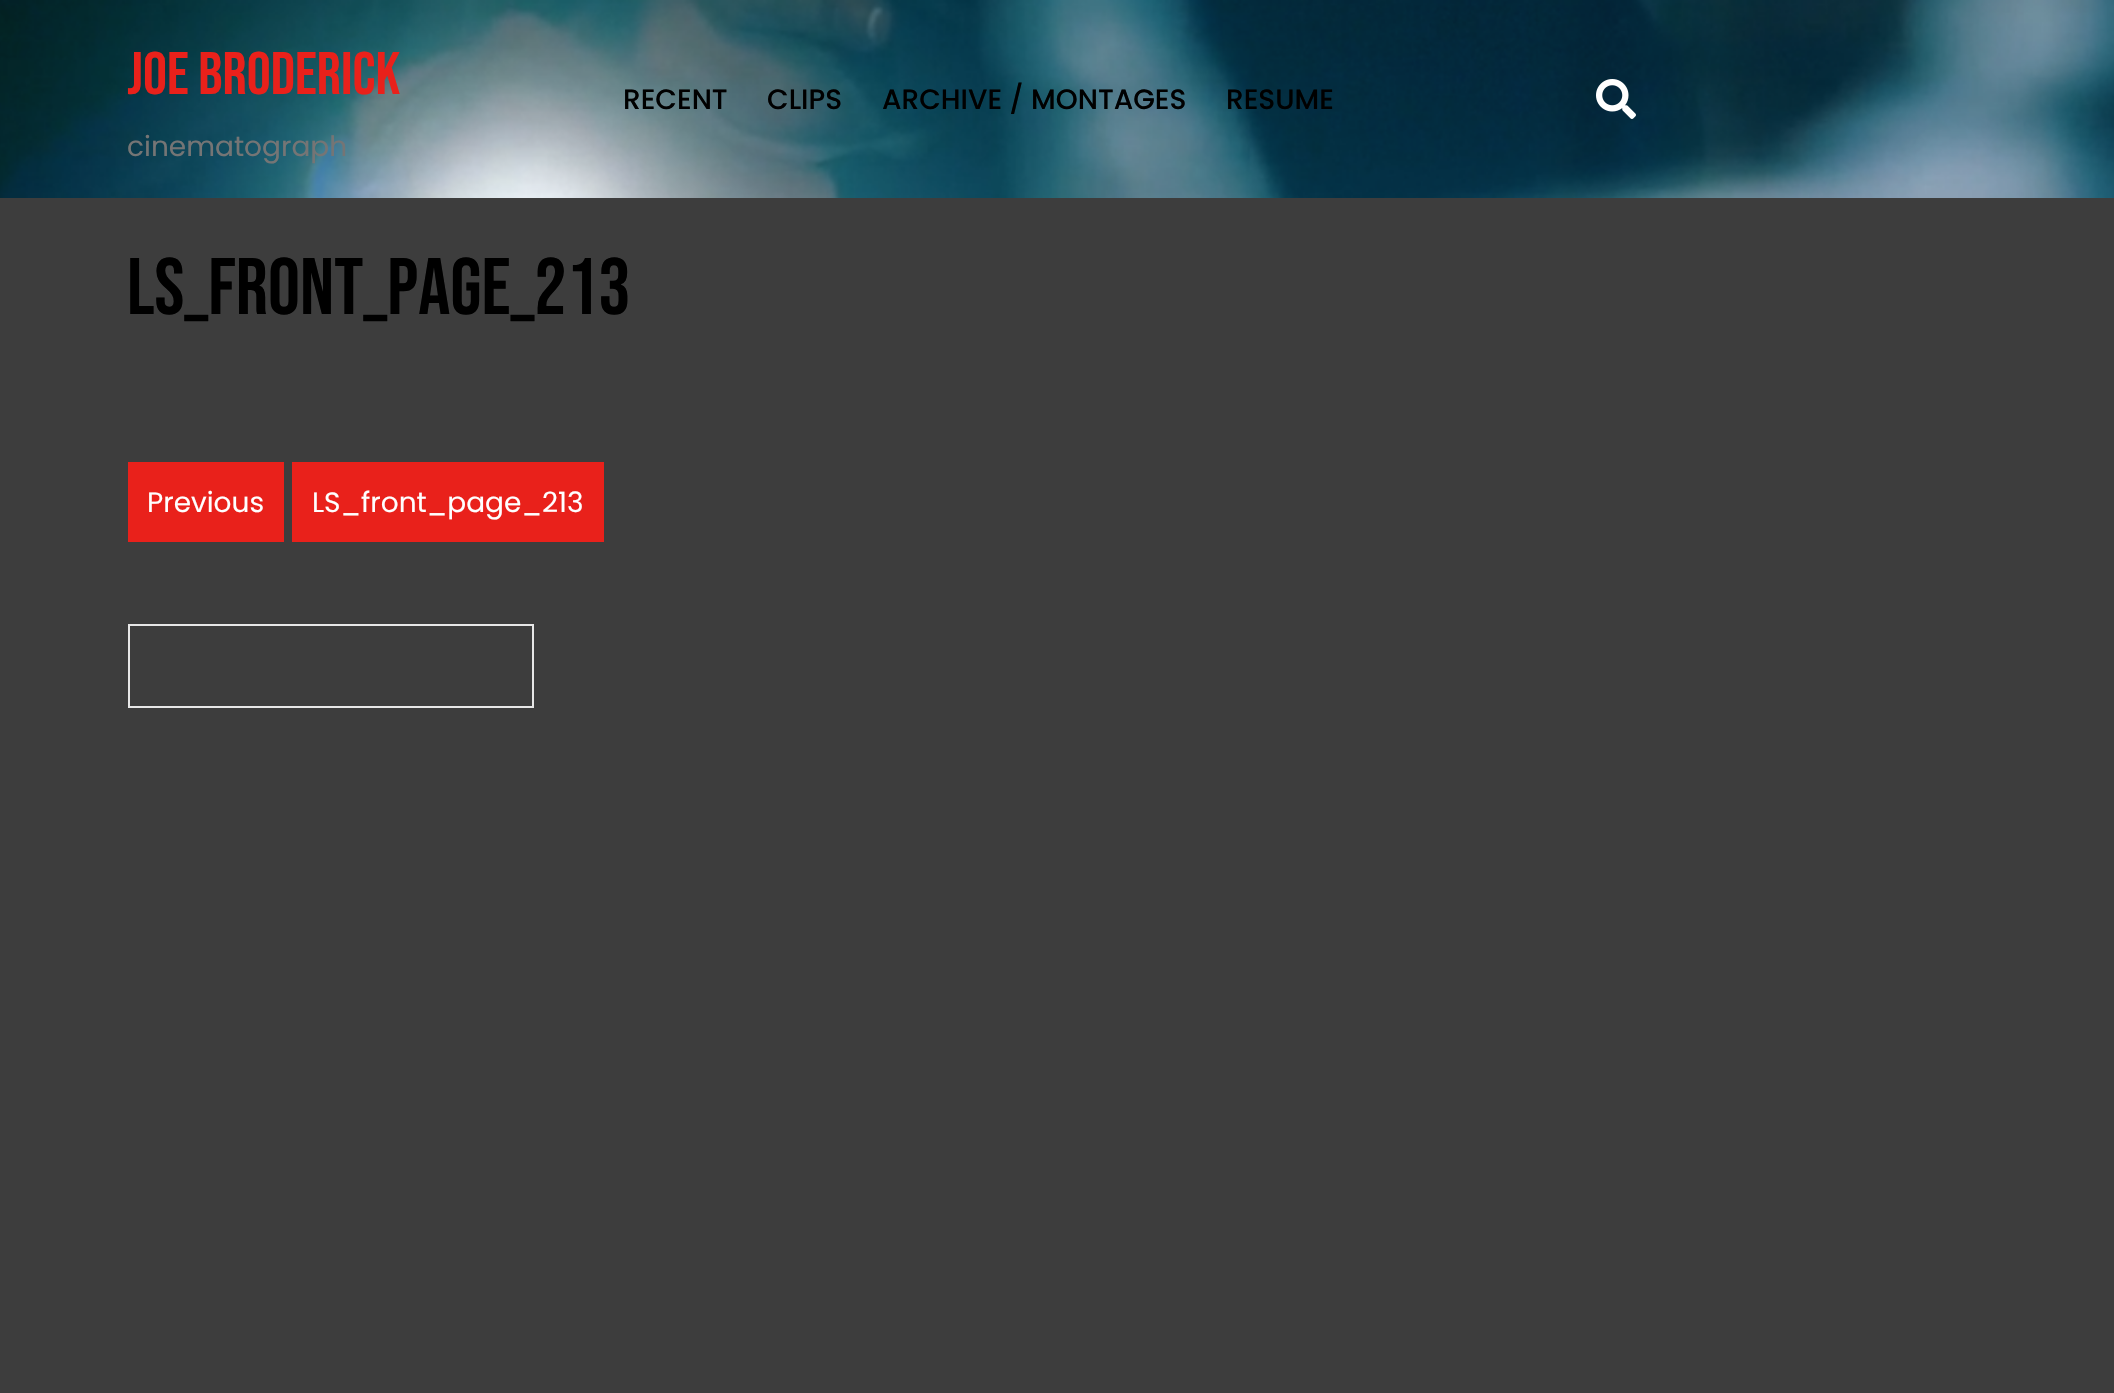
void draw(SkCanvas* canvas) {
	SkPaint fill;
	fill.setAntiAlias(true);
	auto makeFont = [&](const char* family, int weight, float size, bool italic = false) {
		SkFontStyle style(weight, SkFontStyle::kNormal_Width,
			italic ? SkFontStyle::kItalic_Slant : SkFontStyle::kUpright_Slant);
		SkFont result(fontMgr->matchFamilyStyle(family, style), size);
		result.setSubpixel(true);
		return result;
	};
	auto text = [&](const char* s, float x, float y, const SkFont& font) {
		canvas->drawString(s, x, y, font, fill);
	};
	auto box = [&](float l, float t, float r, float b) {
		canvas->drawRect(SkRect::MakeLTRB(l, t, r, b), fill);
	};
	auto picture = [&](const char* path, float l, float t, float r, float b) {
		auto image = SkImages::DeferredFromEncodedData(SkData::MakeFromFileName(path));
		canvas->drawImageRect(image, SkRect::MakeLTRB(l, t, r, b), SkSamplingOptions());
	};
	canvas->clear(0xFF3D3D3D);
	picture("image0.png", 0, 0, 2114, 198);
	picture("image1.png", 1596, 79, 1636, 119);
	fill.setColor(0xFFE9211B);
	box(128, 462, 284, 542);
	box(292, 462, 604, 542);
	fill.setStyle(SkPaint::kStroke_Style);
	fill.setStrokeWidth(2);
	fill.setColor(0xFFE7E7E7);
	canvas->drawRect(SkRect::MakeLTRB(129, 625, 533, 707), fill);
	auto font1 = makeFont("Bebas Neue", 400, 60);
	fill.setStyle(SkPaint::kFill_Style);
	fill.setColor(0xFFE9211B);
	text("Joe Broderick", 127, 94, font1);
	auto font2 = makeFont("Poppins", 400, 28);
	fill.setColor(0xFF757575);
	text("cinematograph", 127, 156, font2);
	auto font3 = makeFont("Poppins", 500, 28);
	fill.setColor(0xFF000000);
	text("RECENT", 623, 109, font3);
	text("CLIPS", 767, 109, font3);
	text("ARCHIVE / MONTAGES", 882, 109, font3);
	text("RESUME", 1226, 109, font3);
	auto font4 = makeFont("Bebas Neue", 400, 80);
	text("LS_front_page_213", 127, 314, font4);
	fill.setColor(0xFFFFFFFF);
	text("Previous", 147, 512, font2);
	text("LS_front_page_213", 312, 512, font2);
}
